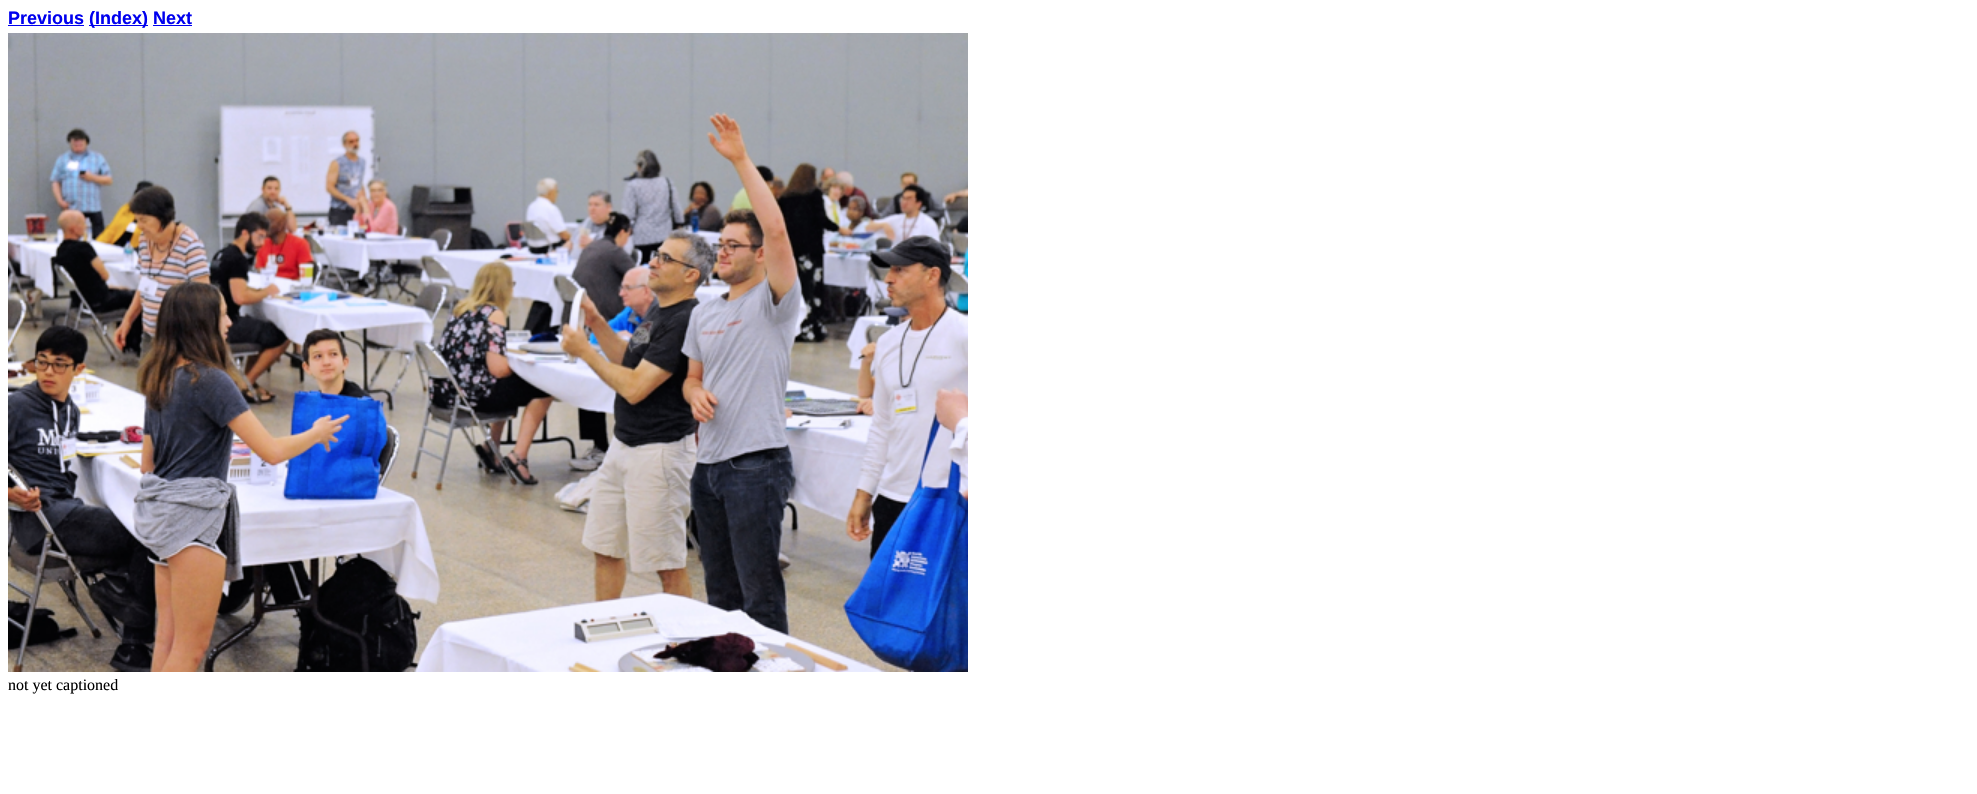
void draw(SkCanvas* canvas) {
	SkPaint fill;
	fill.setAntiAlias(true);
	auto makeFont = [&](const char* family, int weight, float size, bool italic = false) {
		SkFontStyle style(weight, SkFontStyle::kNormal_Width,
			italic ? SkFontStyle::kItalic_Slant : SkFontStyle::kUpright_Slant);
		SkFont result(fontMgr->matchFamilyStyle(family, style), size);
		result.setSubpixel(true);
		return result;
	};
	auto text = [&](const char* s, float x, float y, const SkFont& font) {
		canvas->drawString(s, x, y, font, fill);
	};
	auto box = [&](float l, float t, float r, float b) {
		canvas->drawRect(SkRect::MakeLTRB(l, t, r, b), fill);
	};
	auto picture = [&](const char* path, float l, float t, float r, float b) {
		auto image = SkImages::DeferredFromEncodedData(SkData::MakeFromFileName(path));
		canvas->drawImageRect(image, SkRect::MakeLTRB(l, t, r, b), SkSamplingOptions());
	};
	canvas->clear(0xFFFFFFFF);
	fill.setColor(0xFF0000EE);
	box(8, 25, 84, 26);
	box(89, 25, 148, 26);
	box(153, 25, 192, 26);
	picture("image0.png", 8, 33, 968, 672);
	auto font1 = makeFont("Liberation Sans", 700, 18);
	text("Previous", 8, 24, font1);
	text("(Index) Next", 89, 24, font1);
	auto font2 = makeFont("Liberation Serif", 400, 16);
	fill.setColor(0xFF000000);
	text("not yet captioned", 8, 690, font2);
}
